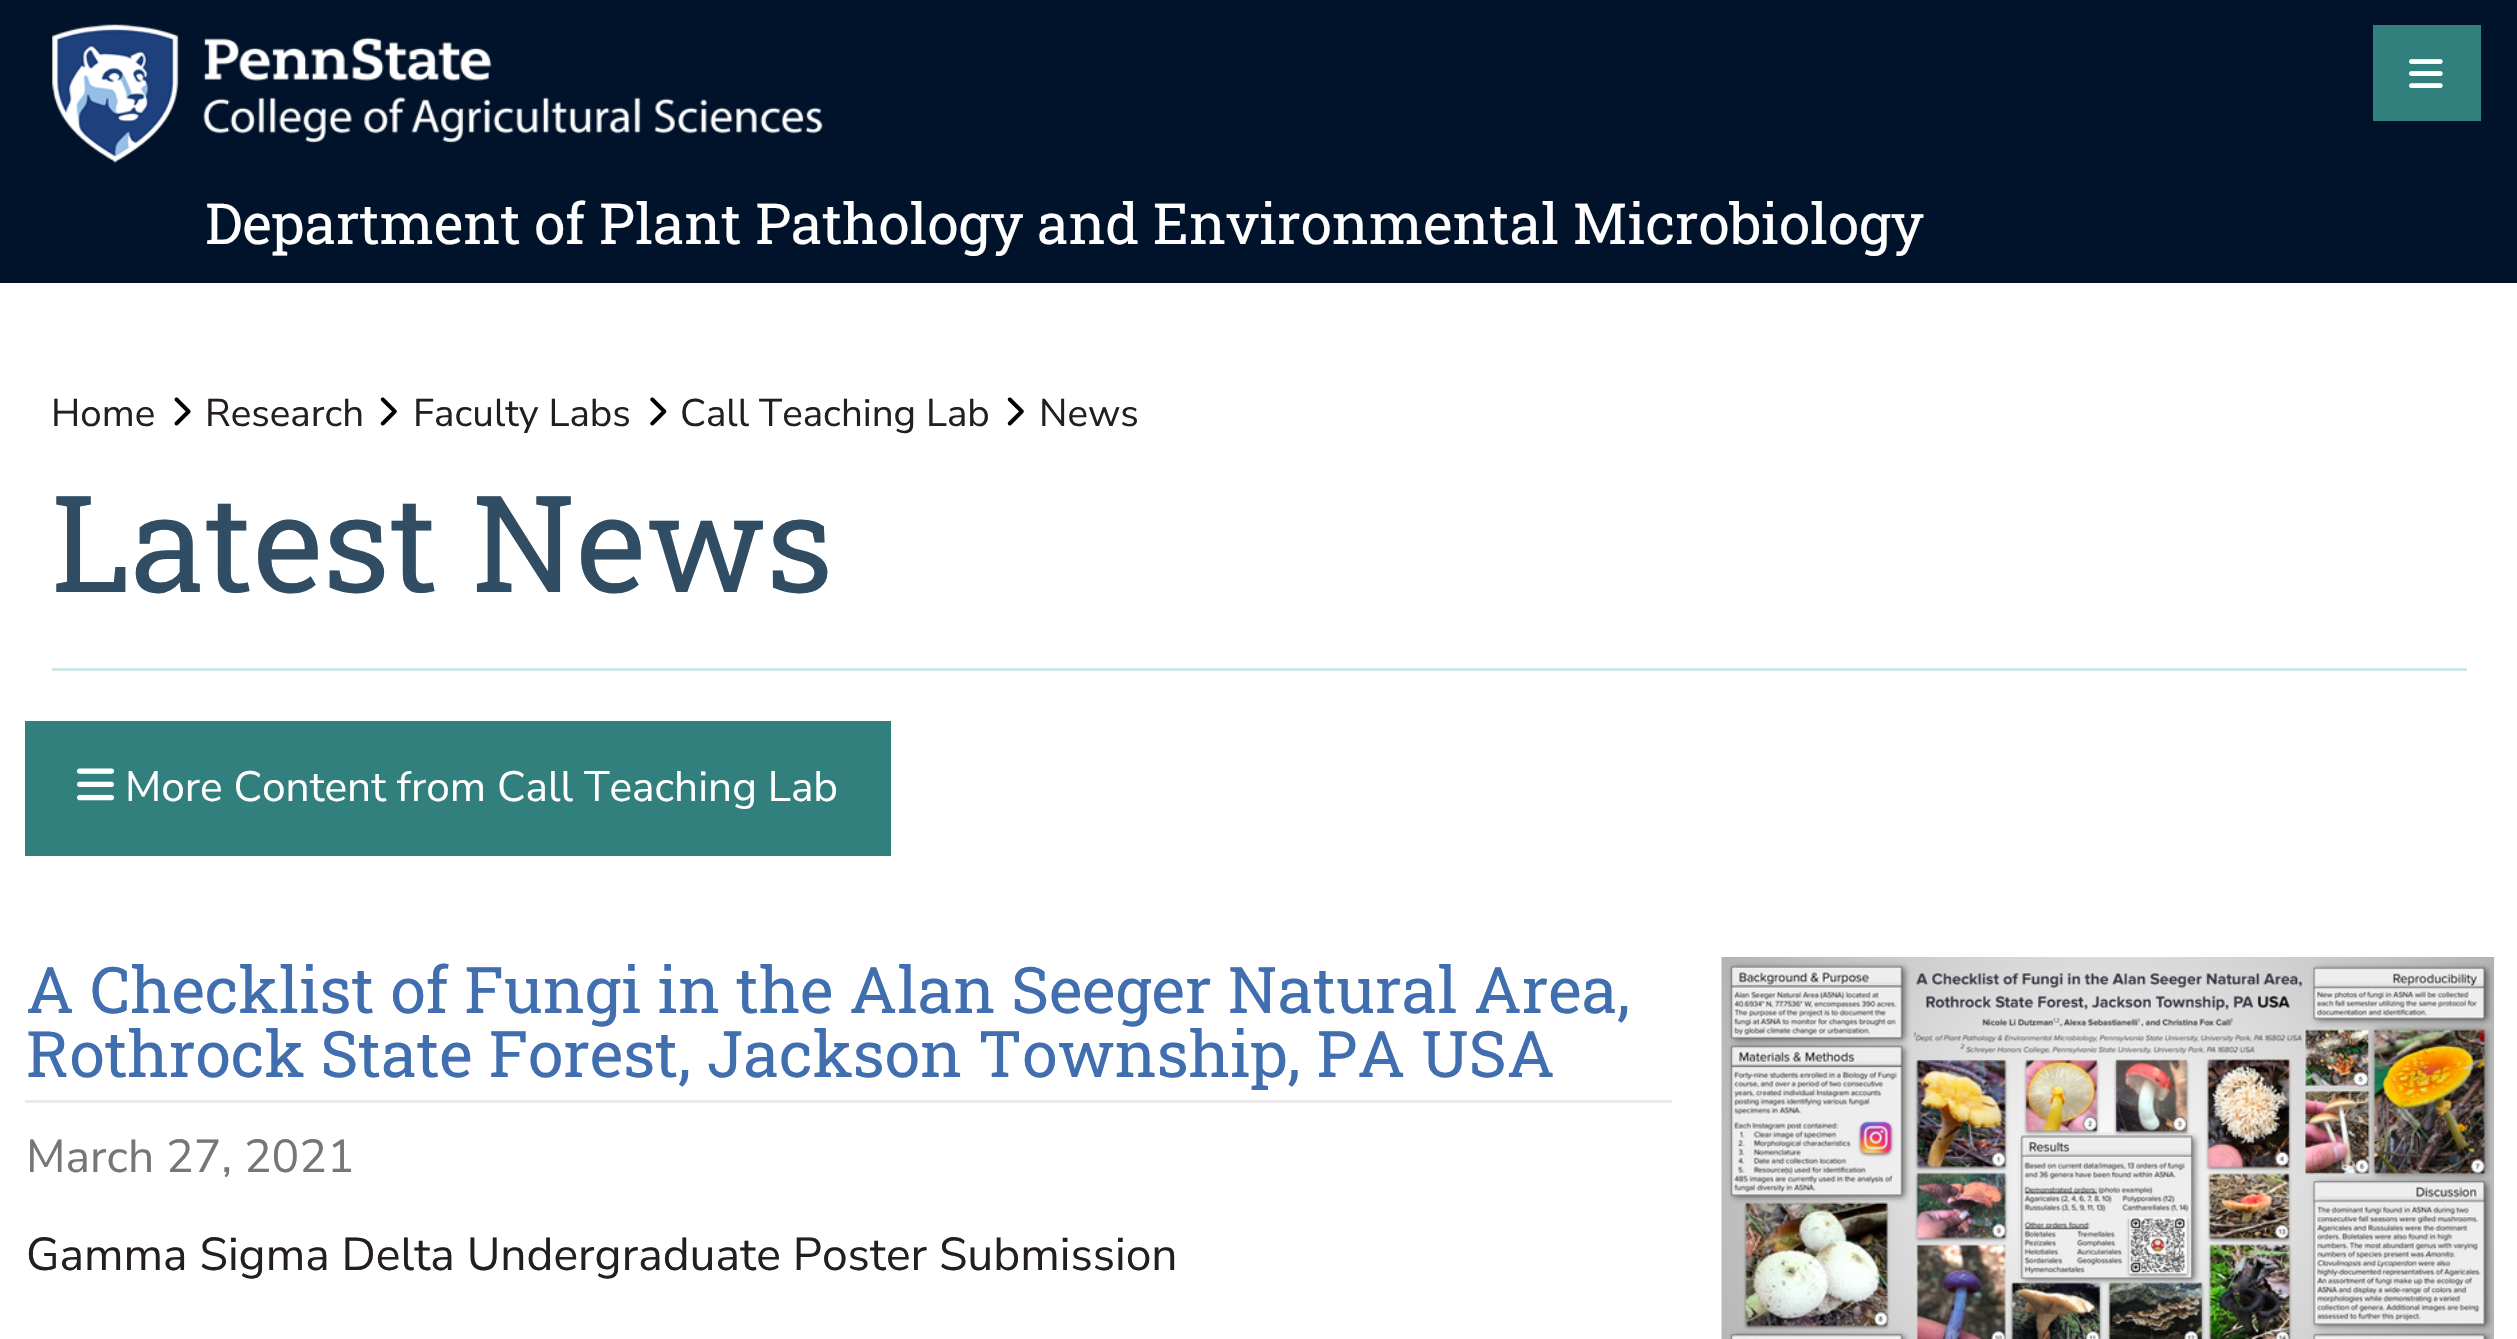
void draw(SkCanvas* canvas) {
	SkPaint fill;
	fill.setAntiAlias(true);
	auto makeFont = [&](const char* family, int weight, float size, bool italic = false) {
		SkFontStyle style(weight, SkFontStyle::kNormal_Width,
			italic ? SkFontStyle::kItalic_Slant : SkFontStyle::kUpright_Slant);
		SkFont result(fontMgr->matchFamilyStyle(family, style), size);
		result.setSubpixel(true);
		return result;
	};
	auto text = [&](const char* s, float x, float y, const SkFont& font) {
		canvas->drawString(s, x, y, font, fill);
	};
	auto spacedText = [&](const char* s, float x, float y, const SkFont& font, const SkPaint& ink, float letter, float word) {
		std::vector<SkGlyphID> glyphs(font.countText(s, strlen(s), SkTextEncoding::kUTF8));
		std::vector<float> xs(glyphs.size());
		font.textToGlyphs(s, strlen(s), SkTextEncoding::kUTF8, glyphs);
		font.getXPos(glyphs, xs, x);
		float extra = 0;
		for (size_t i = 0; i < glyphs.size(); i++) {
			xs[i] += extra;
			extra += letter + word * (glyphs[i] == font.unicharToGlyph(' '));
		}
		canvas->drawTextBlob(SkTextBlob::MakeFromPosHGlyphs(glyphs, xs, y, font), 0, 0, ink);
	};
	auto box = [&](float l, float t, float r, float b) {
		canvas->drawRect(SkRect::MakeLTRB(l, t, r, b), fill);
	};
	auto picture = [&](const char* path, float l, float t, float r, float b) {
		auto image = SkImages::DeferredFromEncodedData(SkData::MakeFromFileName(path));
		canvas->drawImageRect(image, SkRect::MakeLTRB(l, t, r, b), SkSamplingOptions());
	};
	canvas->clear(0xFFFFFFFF);
	fill.setColor(0xFF00132B);
	box(0, 0, 2517, 283);
	picture("image0.png", 52, 24, 823, 163);
	fill.setColor(0xFF32807D);
	box(2373, 25, 2481, 121);
	picture("image1.png", 2409, 59, 2443, 88);
	fill.setColor(0xFFCFE8E7);
	box(52, 668, 2467, 671);
	picture("image2.png", 174, 397, 191, 426);
	picture("image3.png", 380, 397, 397, 426);
	picture("image4.png", 650, 397, 667, 426);
	picture("image3.png", 1007, 397, 1024, 426);
	fill.setColor(0xFF32807D);
	box(25, 721, 891, 856);
	picture("image5.png", 77, 768, 114, 801);
	fill.setColor(0xFFE9E9E9);
	box(25, 1100, 1672, 1103);
	picture("image6.png", 1721, 957, 2495, 1339);
	auto font1 = makeFont("Roboto Slab", 400, 56.5f);
	fill.setColor(0xFFFFFFFF);
	spacedText("Department of Plant Pathology and Environmental Microbiology", 205, 244, font1, fill, 0, -0.25f);
	auto font2 = makeFont("Nunito Sans", 400, 38.5f);
	fill.setColor(0xFF231E20);
	text("Home", 51, 426, font2);
	text("Research", 205, 426, font2);
	text("Faculty Labs", 413, 426, font2);
	text("Call Teaching Lab", 680, 426, font2);
	text("News", 1039, 426, font2);
	auto font3 = makeFont("Roboto Slab", 400, 134.75f);
	fill.setColor(0xFF314D64);
	text("Latest News", 51, 592, font3);
	auto font4 = makeFont("Nunito Sans", 400, 42.4f);
	fill.setColor(0xFFFFFFFF);
	text("More Content from Call Teaching Lab", 125, 801, font4);
	auto font5 = makeFont("Roboto Slab", 400, 64.2f);
	fill.setColor(0xFF406EAE);
	text("A Checklist of Fungi in the Alan Seeger Natural Area,", 26, 1013, font5);
	text("Rothrock State Forest, Jackson Township, PA USA", 26, 1077, font5);
	auto font6 = makeFont("Nunito Sans", 400, 46.2f);
	fill.setColor(0xFF767676);
	text("March 27, 2021", 26, 1172, font6);
	fill.setColor(0xFF231E20);
	text("Gamma Sigma Delta Undergraduate Poster Submission", 26, 1270, font6);
}
